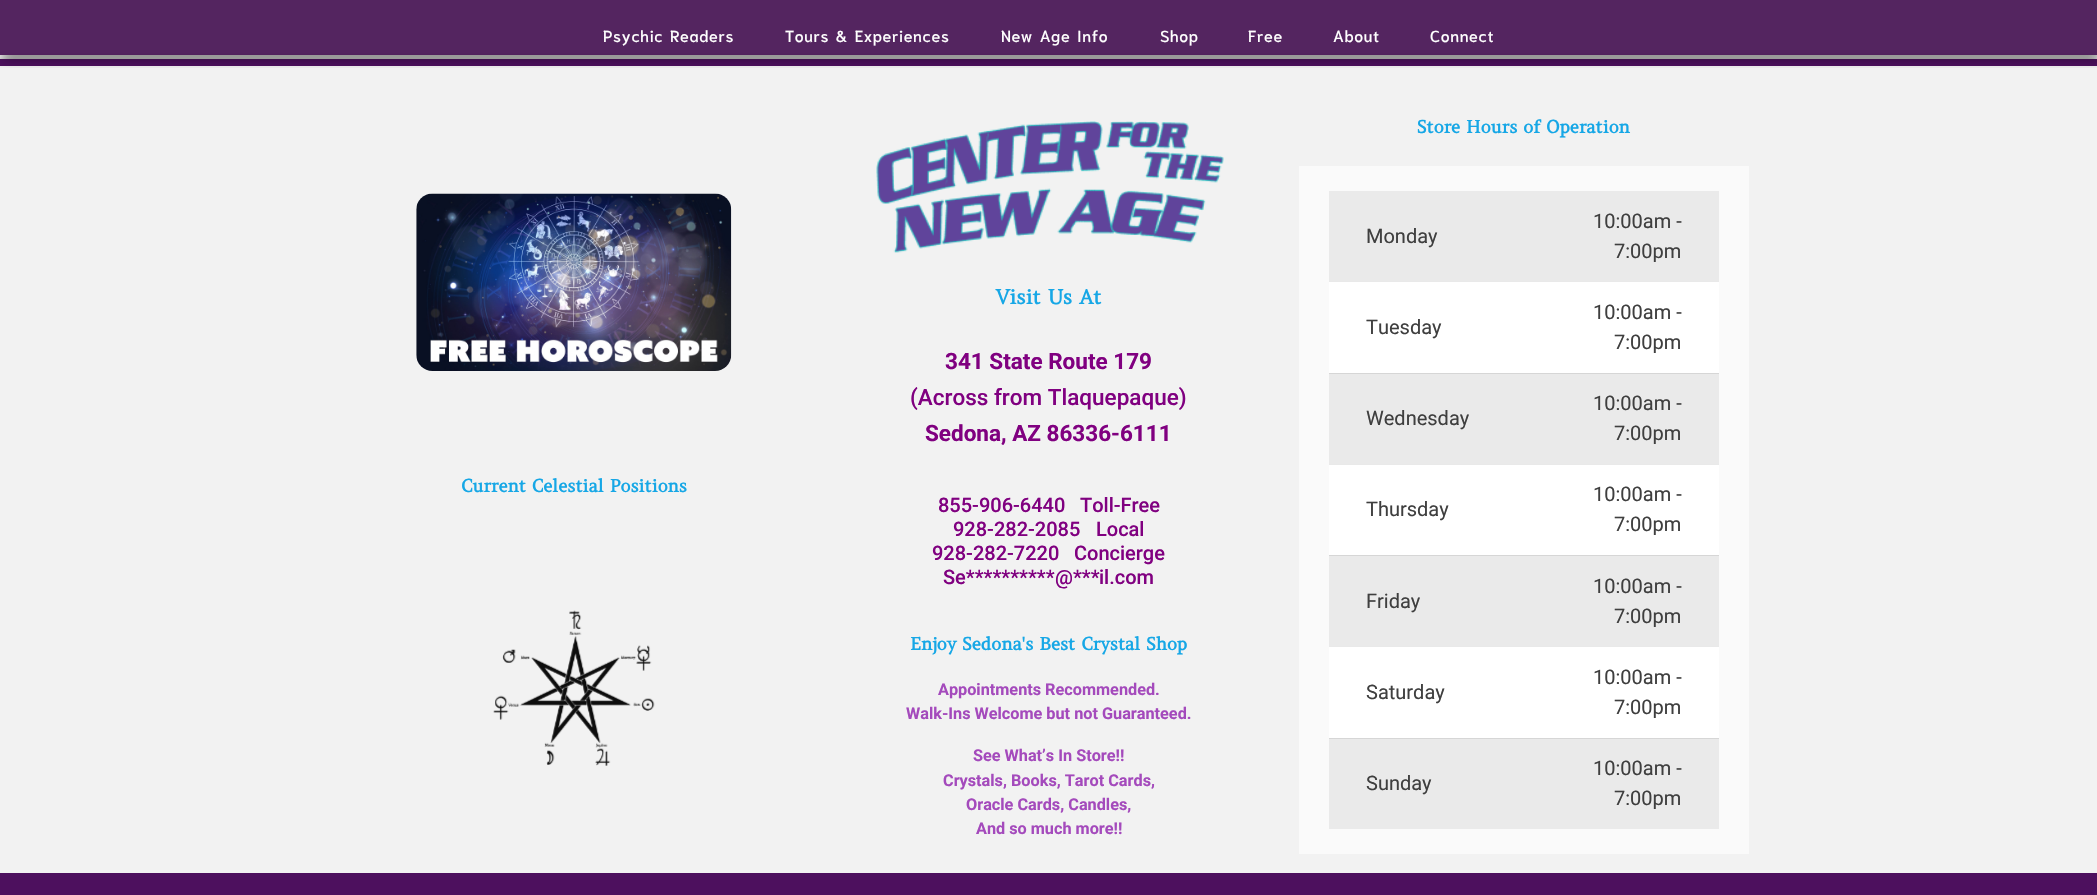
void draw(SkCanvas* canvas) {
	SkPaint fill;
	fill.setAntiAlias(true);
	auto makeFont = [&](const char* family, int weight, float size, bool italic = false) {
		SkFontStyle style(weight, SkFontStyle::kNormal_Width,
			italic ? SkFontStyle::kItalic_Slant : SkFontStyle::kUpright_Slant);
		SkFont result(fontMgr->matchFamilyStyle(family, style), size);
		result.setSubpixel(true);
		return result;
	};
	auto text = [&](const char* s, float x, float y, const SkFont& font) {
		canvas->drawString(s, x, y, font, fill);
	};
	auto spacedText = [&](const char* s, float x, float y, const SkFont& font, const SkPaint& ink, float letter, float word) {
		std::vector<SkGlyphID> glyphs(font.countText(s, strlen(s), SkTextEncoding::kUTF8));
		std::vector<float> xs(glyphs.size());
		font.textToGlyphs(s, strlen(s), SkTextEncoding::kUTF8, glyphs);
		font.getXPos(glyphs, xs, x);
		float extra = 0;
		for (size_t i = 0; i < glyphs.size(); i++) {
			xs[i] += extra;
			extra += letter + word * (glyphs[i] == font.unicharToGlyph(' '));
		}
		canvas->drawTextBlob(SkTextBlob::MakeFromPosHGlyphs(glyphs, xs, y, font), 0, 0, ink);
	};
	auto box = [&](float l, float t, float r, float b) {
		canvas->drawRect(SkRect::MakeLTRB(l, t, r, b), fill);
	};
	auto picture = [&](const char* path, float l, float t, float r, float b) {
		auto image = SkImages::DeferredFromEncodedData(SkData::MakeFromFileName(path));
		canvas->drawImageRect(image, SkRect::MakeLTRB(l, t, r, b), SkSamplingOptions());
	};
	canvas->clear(0xFFFFFFFF);
	fill.setColor(0x80000000);
	fill.setMaskFilter(SkMaskFilter::MakeBlur(kNormal_SkBlurStyle, 6));
	canvas->drawRect(SkRect::MakeLTRB(0, 59, 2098, 873), fill);
	fill.setMaskFilter(nullptr);
	fill.setColor(0xFFF2F2F2);
	box(0, 66, 2097, 873);
	fill.setColor(0xFF4D105E);
	box(0, 59, 2097, 66);
	canvas->save();
	canvas->clipRect(SkRect::MakeLTRB(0, 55, 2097, 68));
	fill.setColor(0x73000000);
	fill.setMaskFilter(SkMaskFilter::MakeBlur(kNormal_SkBlurStyle, 6));
	canvas->drawRect(SkRect::MakeLTRB(3, 3, 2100, 58), fill);
	fill.setMaskFilter(nullptr);
	canvas->restore();
	fill.setColor(0xE6410D4F);
	box(0, 0, 2097, 55);
	picture("image0.png", 416, 193, 732, 371);
	picture("image1.png", 493, 610, 655, 766);
	picture("image2.png", 876, 121, 1224, 253);
	fill.setColor(0xFFFAFAFA);
	box(1299, 166, 1749, 854);
	fill.setColor(0xFFEAEAEA);
	box(1329, 191, 1719, 281);
	fill.setColor(0xFFFFFFFF);
	box(1329, 282, 1719, 373);
	fill.setColor(0xFFE9E9E9);
	box(1329, 281, 1719, 282);
	fill.setColor(0xFFEAEAEA);
	box(1329, 374, 1719, 464);
	fill.setColor(0xFFD6D6D6);
	box(1329, 373, 1719, 374);
	fill.setColor(0xFFFFFFFF);
	box(1329, 465, 1719, 555);
	fill.setColor(0xFFE9E9E9);
	box(1329, 464, 1719, 465);
	fill.setColor(0xFFEAEAEA);
	box(1329, 556, 1719, 646);
	fill.setColor(0xFFD6D6D6);
	box(1329, 555, 1719, 556);
	fill.setColor(0xFFFFFFFF);
	box(1329, 647, 1719, 738);
	fill.setColor(0xFFE9E9E9);
	box(1329, 646, 1719, 647);
	fill.setColor(0xFFEAEAEA);
	box(1329, 739, 1719, 829);
	fill.setColor(0xFFD6D6D6);
	box(1329, 738, 1719, 739);
	fill.setColor(0xFF4D105E);
	box(0, 873, 2097, 895);
	auto font1 = makeFont("Niramit", 500, 16);
	fill.setColor(0xFFFFFFFF);
	spacedText("Psychic Readers", 603, 42, font1, fill, 0.6f, 2);
	spacedText("Tours & Experiences", 785, 42, font1, fill, 0.6f, 2);
	spacedText("New Age Info", 1001, 42, font1, fill, 0.6f, 2);
	spacedText("Shop", 1160, 42, font1, fill, 0.6f, 0);
	spacedText("Free", 1248, 42, font1, fill, 0.6f, 0);
	spacedText("About", 1333, 42, font1, fill, 0.6f, 0);
	spacedText("Connect", 1430, 42, font1, fill, 0.6f, 0);
	auto font2 = makeFont("Amethysta", 700, 17.5f);
	fill.setColor(0xFF16A7E6);
	text("Current Celestial Positions", 461, 492, font2);
	auto font3 = makeFont("Amethysta", 700, 20);
	text("Visit Us At", 996, 304, font3);
	auto font4 = makeFont("Roboto", 700, 22.5f);
	fill.setColor(0xFF800080);
	text("341 State Route 179", 945, 369, font4);
	auto font5 = makeFont("Roboto", 500, 22.5f);
	text("(Across from Tlaquepaque)", 910, 405, font5);
	text("Sedona, AZ 86336-6111", 925, 441, font4);
	auto font6 = makeFont("Roboto", 500, 20);
	text("855-906-6440", 938, 512, font6);
	text("Toll-Free", 1080, 512, font6);
	text("928-282-2085", 953, 536, font6);
	text("Local", 1096, 536, font6);
	text("928-282-7220", 932, 560, font6);
	text("Concierge", 1074, 560, font6);
	text("Se**********", 943, 584, font6);
	text("@***", 1055, 584, font6);
	text("il.com", 1099, 584, font6);
	fill.setColor(0xFF16A7E6);
	text("Enjoy Sedona's Best Crystal Shop", 910, 650, font2);
	auto font7 = makeFont("Roboto", 700, 16.25f);
	fill.setColor(0xFFA44ABC);
	text("Appointments Recommended.", 938, 695, font7);
	text("Walk-Ins Welcome but not Guaranteed.", 906, 719, font7);
	text("See What’s In Store!!", 973, 761, font7);
	text("Crystals, Books, Tarot Cards,", 943, 786, font7);
	text("Oracle Cards, Candles,", 966, 810, font7);
	text("And so much more!!", 976, 834, font7);
	fill.setColor(0xFF16A7E6);
	text("Store Hours of Operation", 1417, 133, font2);
	auto font8 = makeFont("Roboto", 400, 20);
	fill.setColor(0xFF3F3F3F);
	text("Monday", 1366, 243, font8);
	text("10:00am -", 1593, 228, font8);
	text("7:00pm", 1614, 258, font8);
	text("Tuesday", 1366, 334, font8);
	text("10:00am -", 1593, 319, font8);
	text("7:00pm", 1614, 349, font8);
	text("Wednesday", 1366, 425, font8);
	text("10:00am -", 1593, 410, font8);
	text("7:00pm", 1614, 440, font8);
	text("Thursday", 1366, 516, font8);
	text("10:00am -", 1593, 501, font8);
	text("7:00pm", 1614, 531, font8);
	text("Friday", 1366, 608, font8);
	text("10:00am -", 1593, 593, font8);
	text("7:00pm", 1614, 623, font8);
	text("Saturday", 1366, 699, font8);
	text("10:00am -", 1593, 684, font8);
	text("7:00pm", 1614, 714, font8);
	text("Sunday", 1366, 790, font8);
	text("10:00am -", 1593, 775, font8);
	text("7:00pm", 1614, 805, font8);
}
